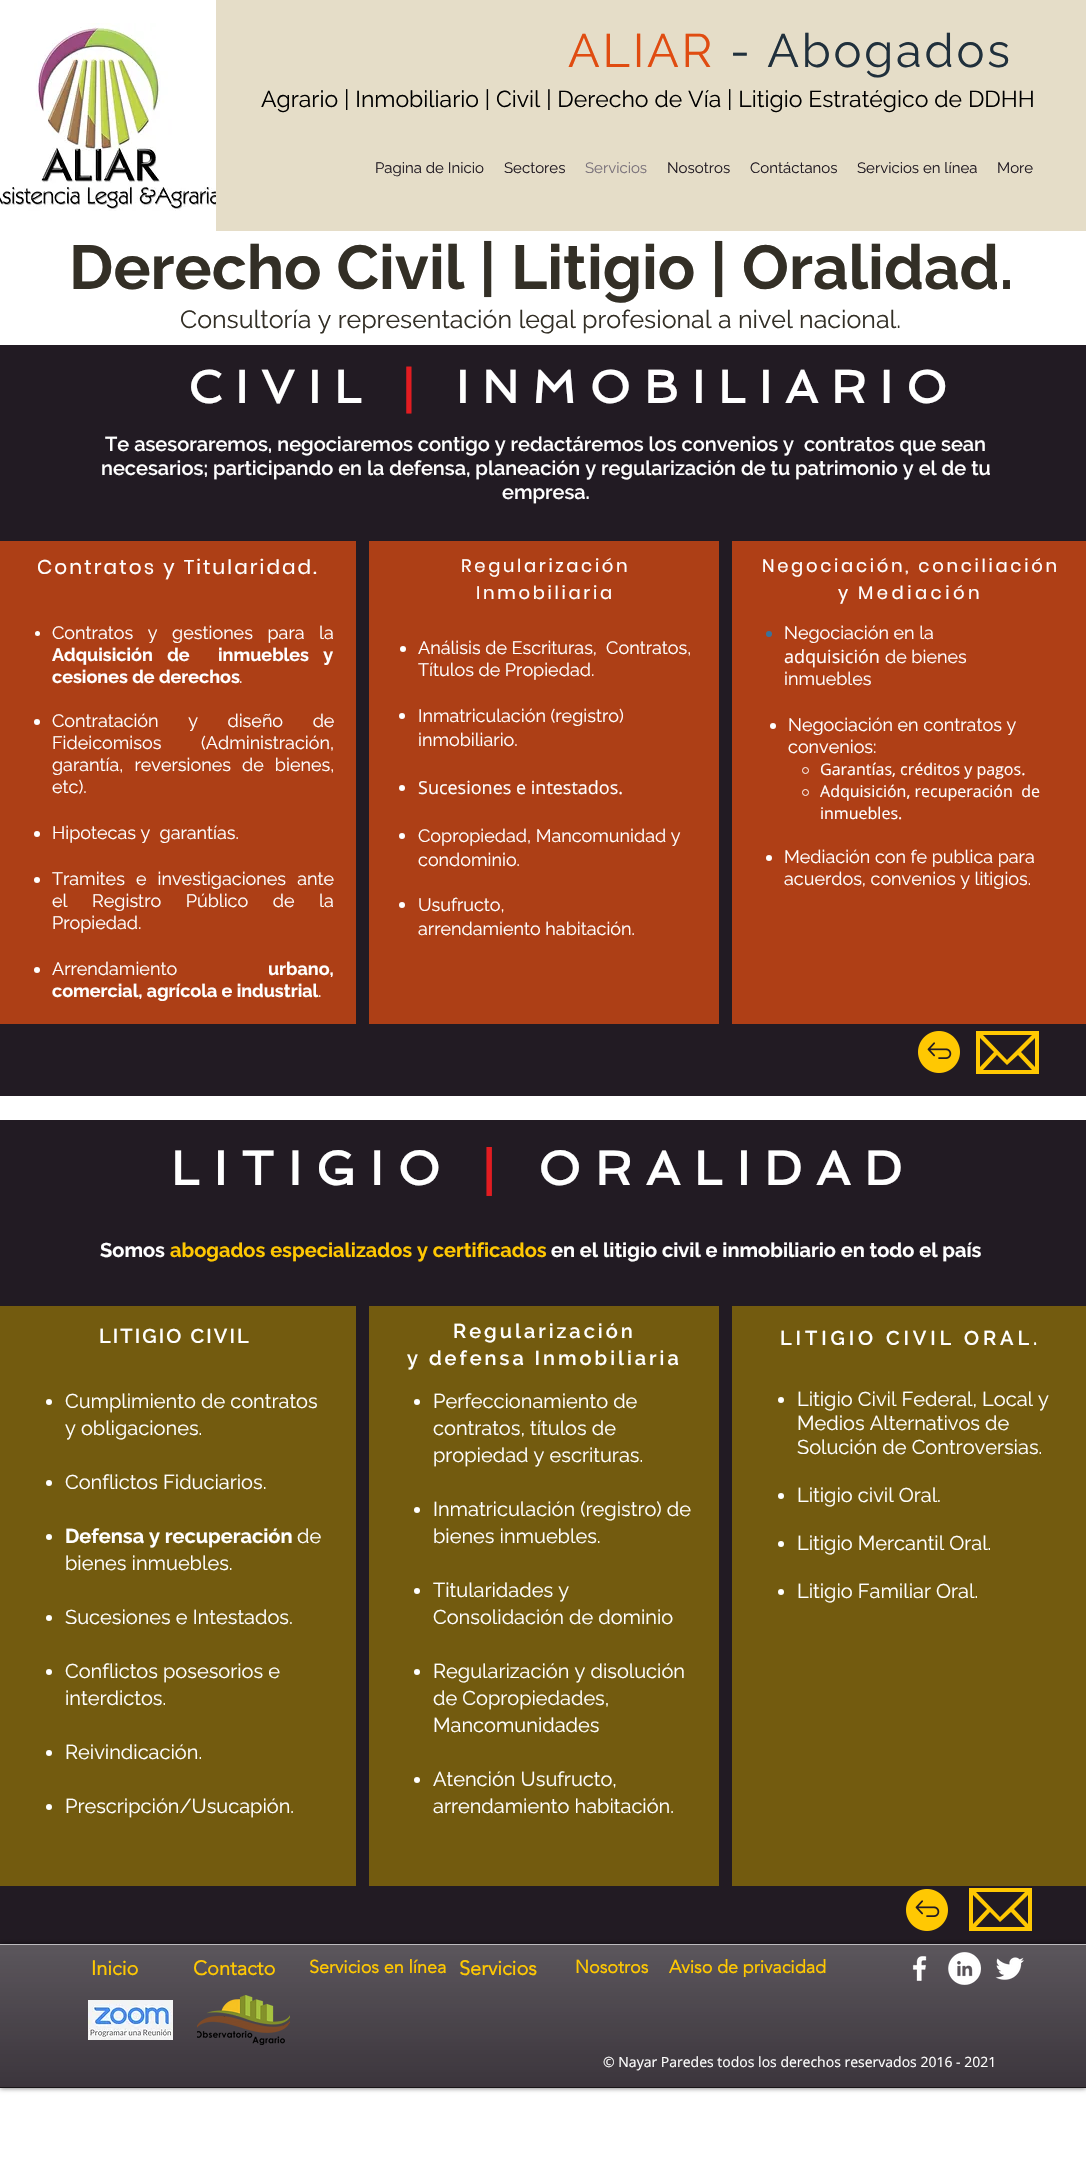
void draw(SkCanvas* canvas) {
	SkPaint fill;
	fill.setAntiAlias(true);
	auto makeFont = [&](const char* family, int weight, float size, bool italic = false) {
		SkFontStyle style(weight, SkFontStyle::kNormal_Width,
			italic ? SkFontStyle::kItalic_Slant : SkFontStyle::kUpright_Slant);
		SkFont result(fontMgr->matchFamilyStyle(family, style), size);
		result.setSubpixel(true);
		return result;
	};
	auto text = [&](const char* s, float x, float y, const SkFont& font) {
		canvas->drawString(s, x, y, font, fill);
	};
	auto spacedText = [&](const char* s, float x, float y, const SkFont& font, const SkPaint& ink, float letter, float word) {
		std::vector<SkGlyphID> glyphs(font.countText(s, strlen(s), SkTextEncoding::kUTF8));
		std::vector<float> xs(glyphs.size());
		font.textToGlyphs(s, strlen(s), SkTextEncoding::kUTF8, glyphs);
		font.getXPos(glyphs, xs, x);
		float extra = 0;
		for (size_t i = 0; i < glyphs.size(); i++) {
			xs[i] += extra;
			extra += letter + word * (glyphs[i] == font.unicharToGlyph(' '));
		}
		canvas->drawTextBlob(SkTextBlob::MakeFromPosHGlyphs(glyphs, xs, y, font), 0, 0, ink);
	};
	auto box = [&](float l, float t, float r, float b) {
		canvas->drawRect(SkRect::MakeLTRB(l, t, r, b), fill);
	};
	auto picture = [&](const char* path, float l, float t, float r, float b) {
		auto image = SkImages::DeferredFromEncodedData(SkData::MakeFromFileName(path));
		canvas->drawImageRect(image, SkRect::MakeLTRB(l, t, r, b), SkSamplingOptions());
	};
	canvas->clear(0xFFFFFFFF);
	picture("image0.png", 0, 23, 216, 211);
	fill.setColor(0xFFE5DDC8);
	box(216, 0, 1086, 231);
	fill.setColor(0xFF221B23);
	box(0, 345, 1086, 1096);
	fill.setColor(0xFFAD3F16);
	box(0, 541, 356, 1024);
	fill.setColor(0xFFFFFFFF);
	canvas->drawCircle(37.5f, 633.5f, 2.5f, fill);
	canvas->drawCircle(37, 722, 3, fill);
	canvas->drawCircle(37, 834, 3, fill);
	canvas->drawCircle(37, 880, 3, fill);
	canvas->drawCircle(37, 970, 3, fill);
	fill.setColor(0xFFAD3F16);
	box(369, 541, 719, 1024);
	fill.setColor(0xFFFFFFFF);
	canvas->drawCircle(403, 649, 3, fill);
	canvas->drawCircle(402, 716, 3, fill);
	canvas->drawCircle(402, 788, 3, fill);
	canvas->drawCircle(402, 836, 3, fill);
	canvas->drawCircle(402, 905, 3, fill);
	fill.setColor(0xFFAF3F16);
	box(732, 541, 1086, 1024);
	fill.setColor(0xFF39729B);
	canvas->drawCircle(769, 634, 3, fill);
	fill.setColor(0xFFFFFFFF);
	canvas->drawCircle(773, 726, 3, fill);
	fill.setStyle(SkPaint::kStroke_Style);
	fill.setStrokeWidth(1);
	canvas->drawCircle(805.5f, 770.5f, 3, fill);
	canvas->drawCircle(805.5f, 792.5f, 3, fill);
	fill.setStyle(SkPaint::kFill_Style);
	canvas->drawCircle(769, 858, 3, fill);
	picture("image1.png", 918, 1031, 960, 1073);
	fill.setColor(0xFFFFC802);
	canvas->drawPath(SkPathBuilder().moveTo(976, 1031).lineTo(976, 1074).lineTo(1039, 1074).lineTo(1039, 1031).close().moveTo(1007, 1060).lineTo(983, 1035).lineTo(1032, 1035).close().moveTo(994, 1052).lineTo(980, 1067).lineTo(980, 1038).close().moveTo(997, 1055).lineTo(1007, 1065).lineTo(1018, 1055).lineTo(1032, 1070).lineTo(983, 1070).close().moveTo(1021, 1052).lineTo(1035, 1038).lineTo(1035, 1067).close().detach(), fill);
	fill.setColor(0xFF221B23);
	box(0, 1120, 1086, 1944);
	fill.setColor(0xFF735B0F);
	box(0, 1306, 356, 1886);
	fill.setColor(0xFFFFFFFF);
	canvas->drawCircle(49, 1402, 3, fill);
	canvas->drawCircle(49, 1483, 3, fill);
	canvas->drawCircle(49, 1537, 3, fill);
	canvas->drawCircle(49, 1618, 3, fill);
	canvas->drawCircle(49, 1672, 3, fill);
	canvas->drawCircle(49, 1753, 3, fill);
	canvas->drawCircle(49, 1807, 3, fill);
	fill.setColor(0xFF735B0F);
	box(369, 1306, 719, 1886);
	fill.setColor(0xFFFFFFFF);
	canvas->drawCircle(417, 1402, 3, fill);
	canvas->drawCircle(417, 1510, 3, fill);
	canvas->drawCircle(417, 1591, 3, fill);
	canvas->drawCircle(417, 1672, 3, fill);
	canvas->drawCircle(417, 1780, 3, fill);
	fill.setColor(0xFF735B0F);
	box(732, 1306, 1086, 1886);
	fill.setColor(0xFFFFFFFF);
	canvas->drawCircle(781, 1400, 3, fill);
	canvas->drawCircle(781, 1496, 3, fill);
	canvas->drawCircle(781, 1544, 3, fill);
	canvas->drawCircle(781, 1592, 3, fill);
	picture("image1.png", 906, 1889, 948, 1931);
	fill.setColor(0xFFFFC802);
	canvas->drawPath(SkPathBuilder().moveTo(969, 1888).lineTo(969, 1931).lineTo(1032, 1931).lineTo(1032, 1888).close().moveTo(1000, 1917).lineTo(976, 1892).lineTo(1025, 1892).close().moveTo(987, 1909).lineTo(973, 1924).lineTo(973, 1895).close().moveTo(990, 1912).lineTo(1000, 1922).lineTo(1011, 1912).lineTo(1025, 1927).lineTo(976, 1927).close().moveTo(1014, 1909).lineTo(1028, 1895).lineTo(1028, 1924).close().detach(), fill);
	fill.setColor(0x99000000);
	fill.setMaskFilter(SkMaskFilter::MakeBlur(kNormal_SkBlurStyle, 2.5f));
	canvas->drawRect(SkRect::MakeLTRB(0, 1944, 1086, 2088), fill);
	fill.setMaskFilter(nullptr);
	fill.setColor(0xFF221B23);
	box(0, 1945, 1086, 2087);
	picture("image2.png", 0, 1945, 1086, 2087);
	fill.setColor(0xFF181518);
	box(0, 2087, 1086, 2088);
	fill.setColor(0xFFBDBBBE);
	box(0, 1944, 1086, 1945);
	picture("image3.png", 912, 1956, 927, 1981);
	picture("image4.png", 948, 1952, 981, 1985);
	picture("image5.png", 995, 1957, 1024, 1980);
	picture("image6.png", 88, 2000, 173, 2040);
	picture("image7.png", 197, 1995, 290, 2045);
	auto font1 = makeFont("Raleway", 400, 47);
	fill.setColor(0xFFE04C11);
	spacedText("ALIAR", 568, 67, font1, fill, 2.75f, 0);
	fill.setColor(0xFF20303C);
	spacedText("- Abogados", 730, 67, font1, fill, 2.75f, 0);
	auto font2 = makeFont("Raleway", 400, 23);
	fill.setColor(0xFF000000);
	text("Agrario | Inmobiliario | Civil | Derecho de Vía | Litigio Estratégico de DDHH", 261, 107, font2);
	auto font3 = makeFont("Raleway", 400, 15);
	fill.setColor(0xFF221B23);
	text("Pagina de Inicio", 375, 173, font3);
	text("Sectores", 504, 173, font3);
	fill.setColor(0xFF7A727B);
	text("Servicios", 585, 173, font3);
	fill.setColor(0xFF221B23);
	text("Nosotros", 667, 173, font3);
	text("Contáctanos", 750, 173, font3);
	text("Servicios en línea", 857, 173, font3);
	text("More", 997, 173, font3);
	auto font4 = makeFont("Raleway", 700, 62);
	fill.setColor(0xFF332F26);
	text("Derecho Civil | Litigio | Oralidad.", 69, 289, font4);
	auto font5 = makeFont("Raleway", 400, 25);
	text("Consultoría y representación legal profesional a nivel nacional.", 180, 328, font5);
	auto font6 = makeFont("Spinnaker", 700, 46);
	fill.setColor(0xFFFFFFFF);
	spacedText("CIVIL", 188, 403, font6, fill, 13.75f, 0);
	fill.setColor(0xFFE21C21);
	spacedText("|", 402, 403, font6, fill, 13.75f, 0);
	fill.setColor(0xFFFFFFFF);
	spacedText("INMOBILIARIO", 456, 403, font6, fill, 13.75f, 0);
	auto font7 = makeFont("Raleway", 600, 20);
	text("Te asesoraremos, negociaremos contigo y redactáremos los convenios y  contratos que sean", 105, 451, font7);
	text("necesarios; participando en la defensa, planeación y regularización de tu patrimonio y el de tu", 101, 475, font7);
	text("empresa.", 502, 499, font7);
	auto font8 = makeFont("Poppins", 400, 20);
	spacedText("Contratos y Titularidad.", 37, 574, font8, fill, 2.1f, 0);
	auto font9 = makeFont("Raleway", 400, 18);
	spacedText("Contratos y gestiones para la", 52, 639, font9, fill, 0, 10);
	auto font10 = makeFont("Raleway", 700, 18);
	spacedText("Adquisición de", 52, 661, font10, fill, 0, 10);
	spacedText("inmuebles y", 218, 661, font10, fill, 0, 10);
	text("cesiones de derechos", 52, 683, font10);
	text(".", 239, 683, font9);
	spacedText("Contratación y diseño de", 52, 727, font9, fill, 0, 25);
	spacedText("Fideicomisos (Administración,", 52, 749, font9, fill, 0, 35);
	spacedText("garantía, reversiones de bienes,", 52, 771, font9, fill, 0, 6.5f);
	text("etc).", 52, 793, font9);
	text("Hipotecas y  garantías.", 52, 839, font9);
	spacedText("Tramites e investigaciones ante", 52, 885, font9, fill, 0, 6.5f);
	spacedText("el Registro Público de la", 52, 907, font9, fill, 0, 20);
	text("Propiedad.", 52, 929, font9);
	text("Arrendamiento", 52, 975, font9);
	text("urbano,", 268, 975, font10);
	text("comercial, agrícola e industrial", 52, 997, font10);
	text(".", 318, 997, font9);
	auto font11 = makeFont("Poppins", 400, 18);
	spacedText("Regularización", 461, 572, font11, fill, 2.7f, 0);
	spacedText("Inmobiliaria", 476, 599, font11, fill, 2.7f, 0);
	text("Análisis de Escrituras,  Contratos,", 418, 654, font9);
	text("Títulos de Propiedad.", 418, 676, font9);
	text("Inmatriculación (registro)", 418, 722, font9);
	text("inmobiliario.", 418, 746, font9);
	auto font12 = makeFont("Open Sans", 400, 18);
	text("Sucesiones e intestados.", 418, 794, font12);
	text("Copropiedad, Mancomunidad y", 418, 842, font9);
	text("condominio.", 418, 866, font9);
	text("Usufructo,", 418, 911, font9);
	text("arrendamiento habitación.", 418, 935, font9);
	spacedText("Negociación, conciliación", 762, 572, font11, fill, 2.7f, 0);
	spacedText("y", 838, 599, font11, fill, 2.7f, 0);
	spacedText("Mediación", 858, 599, font11, fill, 3.5f, 0);
	text("Negociación en la", 784, 639, font9);
	text("adquisición", 784, 663, font12);
	text("de bienes", 885, 663, font9);
	text("inmuebles", 784, 685, font9);
	text("Negociación en contratos y", 788, 731, font9);
	text("convenios:", 788, 753, font9);
	auto font13 = makeFont("Open Sans", 400, 16);
	text("Garantías, créditos y pagos.", 820, 775, font13);
	text("Adquisición, recuperación  de", 820, 797, font13);
	text("inmuebles.", 820, 819, font13);
	text("Mediación con fe publica para", 784, 863, font9);
	text("acuerdos, convenios y litigios.", 784, 885, font9);
	auto font14 = makeFont("Spinnaker", 700, 48);
	spacedText("LITIGIO", 171, 1185, font14, fill, 14.5f, 0);
	fill.setColor(0xFFE21C21);
	spacedText("|", 482, 1185, font14, fill, 14.5f, 0);
	fill.setColor(0xFFFFFFFF);
	spacedText("ORALIDAD", 538, 1185, font14, fill, 14.5f, 0);
	auto font15 = makeFont("Raleway", 700, 20);
	text("Somos", 100, 1257, font15);
	fill.setColor(0xFFFFC802);
	text("abogados especializados y certificados", 170, 1257, font15);
	fill.setColor(0xFFFFFFFF);
	text("en el litigio civil e inmobiliario en todo el país", 551, 1257, font15);
	spacedText("LITIGIO CIVIL", 99, 1343, font7, fill, 2.1f, 0);
	auto font16 = makeFont("Raleway", 400, 20);
	text("Cumplimiento de contratos", 65, 1408, font16);
	text("y obligaciones.", 65, 1435, font16);
	text("Conflictos Fiduciarios.", 65, 1489, font16);
	text("Defensa y recuperación", 65, 1543, font15);
	text("de", 297, 1543, font16);
	text("bienes inmuebles.", 65, 1570, font16);
	text("Sucesiones e Intestados.", 65, 1624, font16);
	text("Conflictos posesorios e", 65, 1678, font16);
	text("interdictos.", 65, 1705, font16);
	text("Reivindicación.", 65, 1759, font16);
	text("Prescripción/Usucapión.", 65, 1813, font16);
	spacedText("Regularización", 453, 1338, font7, fill, 3, 0);
	spacedText("y defensa Inmobiliaria", 407, 1365, font7, fill, 3, 0);
	text("Perfeccionamiento de", 433, 1408, font16);
	text("contratos, títulos de", 433, 1435, font16);
	text("propiedad y escrituras.", 433, 1462, font16);
	text("Inmatriculación (registro) de", 433, 1516, font16);
	text("bienes inmuebles.", 433, 1543, font16);
	text("Titularidades y", 433, 1597, font16);
	text("Consolidación de dominio", 433, 1624, font16);
	text("Regularización y disolución", 433, 1678, font16);
	text("de Copropiedades,", 433, 1705, font16);
	text("Mancomunidades", 433, 1732, font16);
	text("Atención Usufructo,", 433, 1786, font16);
	text("arrendamiento habitación.", 433, 1813, font16);
	spacedText("LITIGIO CIVIL ORAL.", 780, 1345, font7, fill, 3.9f, 0);
	text("Litigio Civil Federal, Local y", 797, 1406, font16);
	text("Medios Alternativos de", 797, 1430, font16);
	text("Solución de Controversias.", 797, 1454, font16);
	text("Litigio civil Oral.", 797, 1502, font16);
	text("Litigio Mercantil Oral.", 797, 1550, font16);
	text("Litigio Familiar Oral.", 797, 1598, font16);
	auto font17 = makeFont("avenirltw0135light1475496", 700, 20);
	fill.setColor(0xFFFFC802);
	text("Inicio", 91, 1975, font17);
	text("Contacto", 193, 1975, font17);
	auto font18 = makeFont("avenirltw0135light1475496", 700, 18);
	text("Servicios en línea", 309, 1973, font18);
	text("Servicios", 459, 1975, font17);
	text("Nosotros", 575, 1973, font18);
	text("Aviso de privacidad", 669, 1973, font18);
	auto font19 = makeFont("Open Sans", 400, 14);
	fill.setColor(0xFFFFFFFF);
	text("© Nayar Paredes todos los derechos reservados 2016 - 2021", 603, 2067, font19);
}
